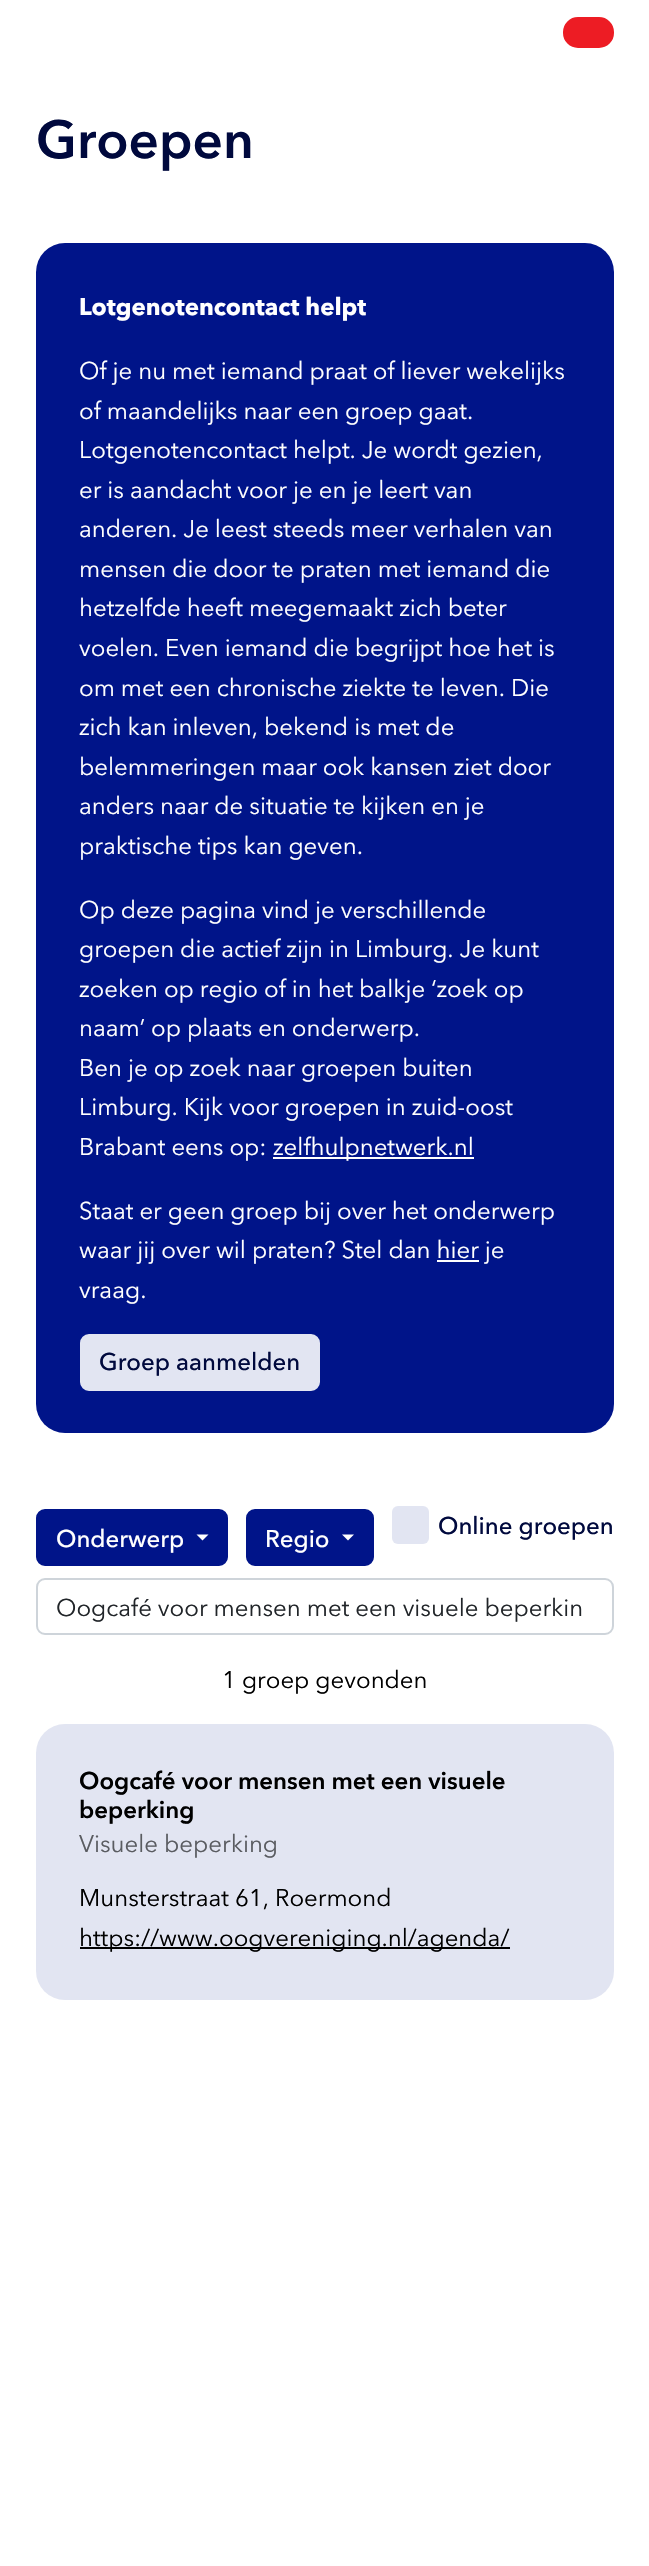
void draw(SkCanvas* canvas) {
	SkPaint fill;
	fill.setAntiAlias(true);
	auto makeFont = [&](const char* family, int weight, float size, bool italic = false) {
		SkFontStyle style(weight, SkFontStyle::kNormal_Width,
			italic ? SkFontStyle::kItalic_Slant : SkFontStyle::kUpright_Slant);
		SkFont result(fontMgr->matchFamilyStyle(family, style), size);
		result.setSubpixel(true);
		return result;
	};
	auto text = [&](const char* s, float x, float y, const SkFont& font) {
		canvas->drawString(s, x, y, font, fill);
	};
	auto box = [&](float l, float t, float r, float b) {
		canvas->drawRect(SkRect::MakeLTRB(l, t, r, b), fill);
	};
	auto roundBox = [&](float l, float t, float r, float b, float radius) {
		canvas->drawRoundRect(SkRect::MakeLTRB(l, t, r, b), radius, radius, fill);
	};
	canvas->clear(0xFFFFFFFF);
	fill.setColor(0xFFED1C24);
	canvas->drawRoundRect(SkRect::MakeLTRB(564, 18, 613, 47), 14, 14, fill);
	fill.setStyle(SkPaint::kStroke_Style);
	fill.setStrokeWidth(2);
	canvas->drawRoundRect(SkRect::MakeLTRB(564, 18, 613, 47), 14, 14, fill);
	fill.setStyle(SkPaint::kFill_Style);
	fill.setColor(0xFF001489);
	roundBox(36, 243, 614, 1433, 29);
	fill.setColor(0xFFFFFFFF);
	box(273, 1157, 474, 1159);
	box(437, 1260, 479, 1262);
	fill.setColor(0xFFE2E5F2);
	canvas->drawRoundRect(SkRect::MakeLTRB(81, 1335, 319, 1390), 8, 8, fill);
	fill.setStyle(SkPaint::kStroke_Style);
	canvas->drawRoundRect(SkRect::MakeLTRB(81, 1335, 319, 1390), 8, 8, fill);
	fill.setStyle(SkPaint::kFill_Style);
	fill.setColor(0xFF001489);
	canvas->drawRoundRect(SkRect::MakeLTRB(37, 1510, 227, 1565), 8, 8, fill);
	fill.setStyle(SkPaint::kStroke_Style);
	canvas->drawRoundRect(SkRect::MakeLTRB(37, 1510, 227, 1565), 8, 8, fill);
	fill.setStyle(SkPaint::kFill_Style);
	fill.setColor(0xFFFFFFFF);
	canvas->drawPath(SkPathBuilder().moveTo(196.5f, 1534.5f).lineTo(208.5f, 1534.5f).lineTo(202.5f, 1540.5f).close().detach(), fill);
	fill.setColor(0xFF001489);
	canvas->drawRoundRect(SkRect::MakeLTRB(247, 1510, 373, 1565), 8, 8, fill);
	fill.setStyle(SkPaint::kStroke_Style);
	canvas->drawRoundRect(SkRect::MakeLTRB(247, 1510, 373, 1565), 8, 8, fill);
	fill.setStyle(SkPaint::kFill_Style);
	fill.setColor(0xFFFFFFFF);
	canvas->drawPath(SkPathBuilder().moveTo(342, 1534.5f).lineTo(354, 1534.5f).lineTo(348, 1540.5f).close().detach(), fill);
	fill.setColor(0xFFE2E5F2);
	roundBox(392, 1506, 429, 1544, 6);
	fill.setStyle(SkPaint::kStroke_Style);
	fill.setColor(0xFFCED4DA);
	canvas->drawRoundRect(SkRect::MakeLTRB(37, 1579, 613, 1634), 8, 8, fill);
	fill.setStyle(SkPaint::kFill_Style);
	fill.setColor(0xFFE2E5F2);
	roundBox(36, 1724, 614, 2000, 29);
	fill.setColor(0xFF000000);
	box(80, 1947, 510, 1949);
	auto font1 = makeFont("Avenir Next", 700, 53);
	fill.setColor(0xFF00093D);
	text("Groepen", 36, 158, font1);
	auto font2 = makeFont("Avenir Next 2", 700, 24);
	fill.setColor(0xFFFFFFFF);
	text("Lotgenotencontact helpt", 79, 315, font2);
	auto font3 = makeFont("Avenir Next", 400, 24);
	text("Of je nu met iemand praat of liever wekelijks", 79, 379, font3);
	text("of maandelijks naar een groep gaat.", 79, 419, font3);
	text("Lotgenotencontact helpt. Je wordt gezien,", 79, 458, font3);
	text("er is aandacht voor je en je leert van", 79, 498, font3);
	text("anderen. Je leest steeds meer verhalen van", 79, 537, font3);
	text("mensen die door te praten met iemand die", 79, 577, font3);
	text("hetzelfde heeft meegemaakt zich beter", 79, 616, font3);
	text("voelen. Even iemand die begrijpt hoe het is", 79, 656, font3);
	text("om met een chronische ziekte te leven. Die", 79, 696, font3);
	text("zich kan inleven, bekend is met de", 79, 735, font3);
	text("belemmeringen maar ook kansen ziet door", 79, 775, font3);
	text("anders naar de situatie te kijken en je", 79, 814, font3);
	text("praktische tips kan geven.", 79, 854, font3);
	text("Op deze pagina vind je verschillende", 79, 918, font3);
	text("groepen die actief zijn in Limburg. Je kunt", 79, 957, font3);
	text("zoeken op regio of in het balkje ‘zoek op", 79, 997, font3);
	text("naam’ op plaats en onderwerp.", 79, 1036, font3);
	text("Ben je op zoek naar groepen buiten", 79, 1076, font3);
	text("Limburg. Kijk voor groepen in zuid-oost", 79, 1115, font3);
	text("Brabant eens op:", 79, 1155, font3);
	text("zelfhulpnetwerk.nl", 273, 1155, font3);
	text("Staat er geen groep bij over het onderwerp", 79, 1219, font3);
	text("waar jij over wil praten? Stel dan hier je", 79, 1258, font3);
	text("vraag.", 79, 1298, font3);
	auto font4 = makeFont("Avenir Next", 500, 24);
	fill.setColor(0xFF00093D);
	text("Groep aanmelden", 99, 1370, font4);
	fill.setColor(0xFFFFFFFF);
	text("Onderwerp", 56, 1547, font4);
	text("Regio", 265, 1547, font4);
	fill.setColor(0xFF00093D);
	text("Online groepen", 438, 1534, font4);
	fill.setColor(0xFF212529);
	text("Oogcafé voor mensen met een visuele beperkin", 56, 1616, font3);
	fill.setColor(0xFF000000);
	text("1 groep gevonden", 222, 1688, font3);
	auto font5 = makeFont("Avenir Next", 700, 24);
	text("Oogcafé voor mensen met een visuele", 79, 1789, font5);
	text("beperking", 79, 1818, font5);
	fill.setColor(0xFF5A5C61);
	text("Visuele beperking", 79, 1852, font3);
	fill.setColor(0xFF000000);
	text("Munsterstraat 61, Roermond", 79, 1906, font3);
	text("https://www.oogvereniging.nl/agenda/", 79, 1946, font3);
}
